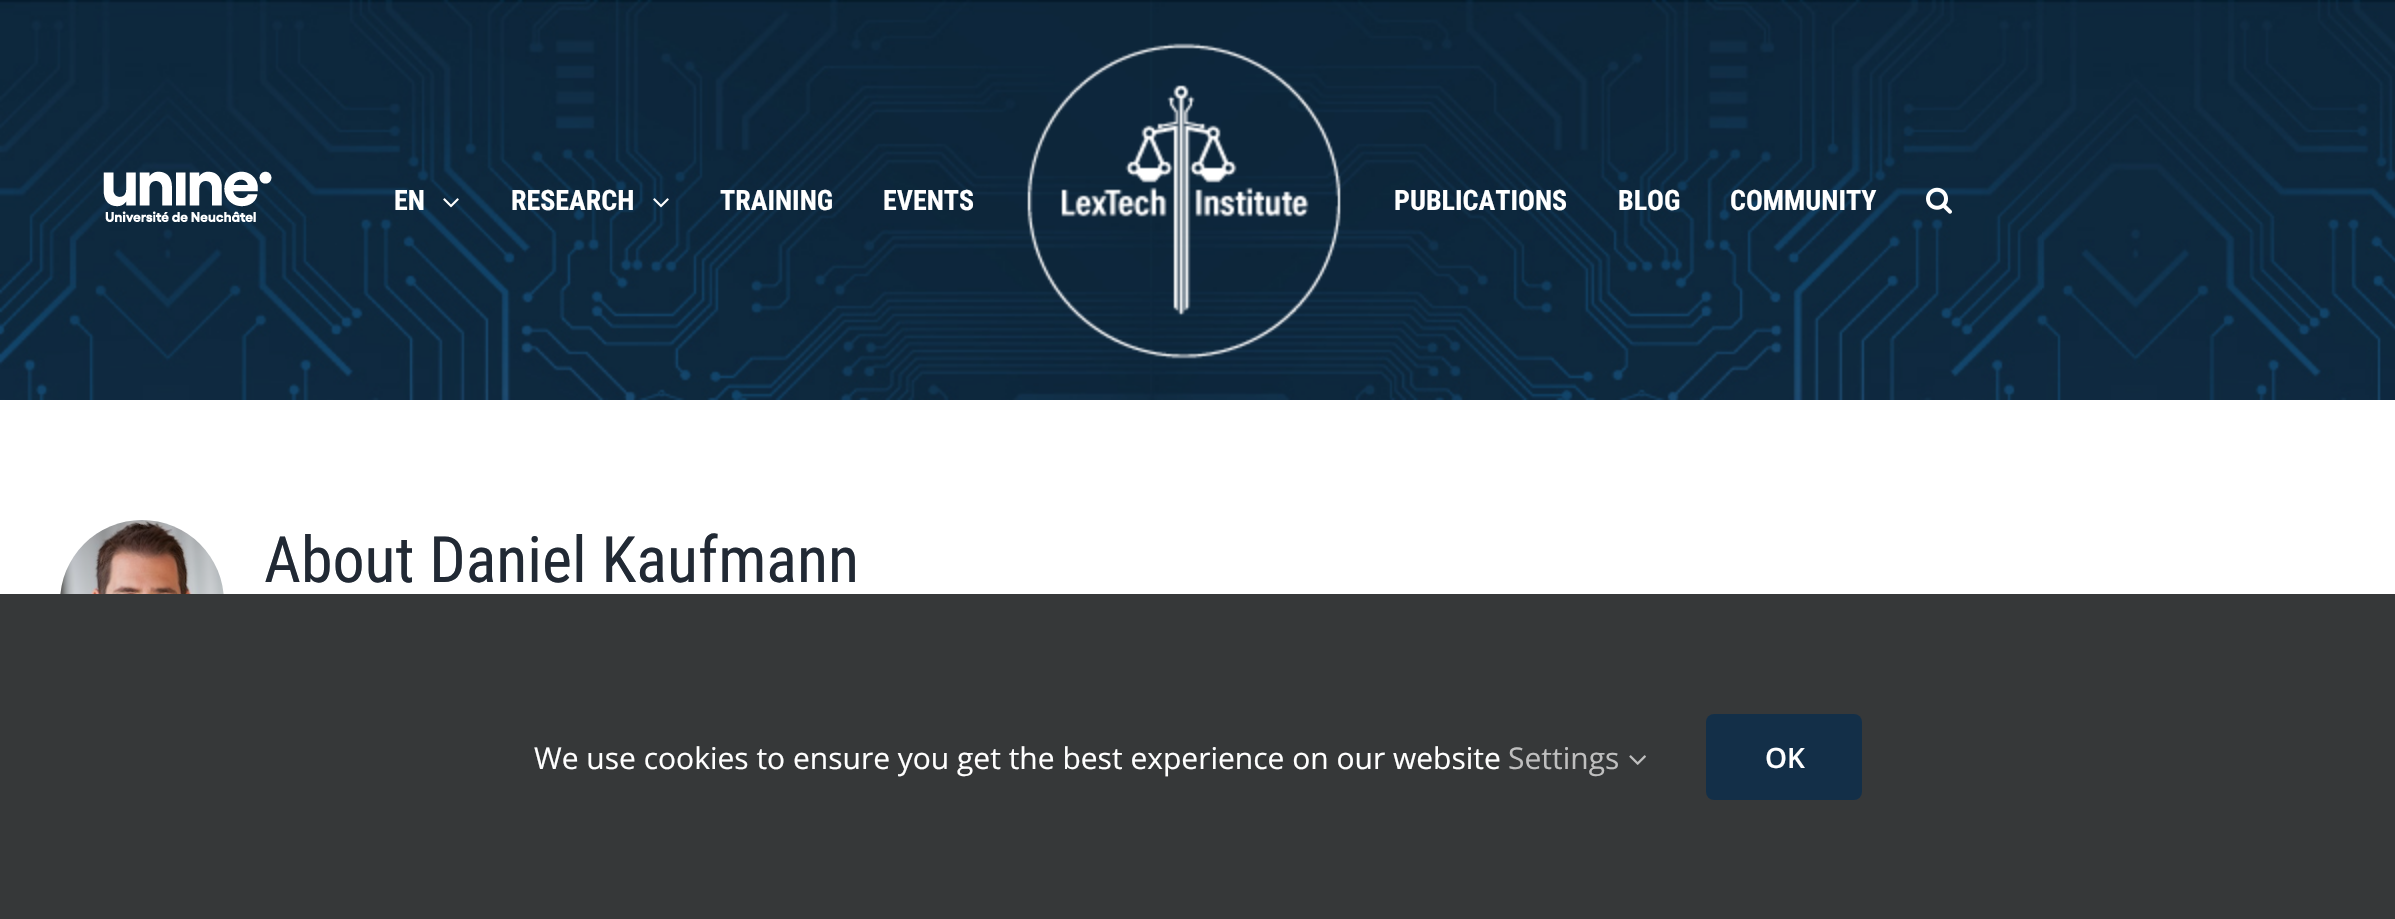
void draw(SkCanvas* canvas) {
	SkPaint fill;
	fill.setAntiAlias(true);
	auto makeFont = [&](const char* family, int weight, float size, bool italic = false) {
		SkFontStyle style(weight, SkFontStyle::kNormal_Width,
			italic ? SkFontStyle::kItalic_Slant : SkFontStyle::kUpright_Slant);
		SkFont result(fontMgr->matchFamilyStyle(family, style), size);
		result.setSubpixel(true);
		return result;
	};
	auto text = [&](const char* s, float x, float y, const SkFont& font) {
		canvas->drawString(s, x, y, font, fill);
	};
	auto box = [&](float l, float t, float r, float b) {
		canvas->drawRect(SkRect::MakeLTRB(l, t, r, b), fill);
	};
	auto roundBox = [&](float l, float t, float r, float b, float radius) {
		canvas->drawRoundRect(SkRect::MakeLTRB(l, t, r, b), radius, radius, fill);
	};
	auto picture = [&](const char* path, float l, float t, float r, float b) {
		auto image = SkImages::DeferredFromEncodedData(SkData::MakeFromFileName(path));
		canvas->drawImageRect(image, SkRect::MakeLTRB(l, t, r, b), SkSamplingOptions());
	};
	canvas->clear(0xFFFFFFFF);
	picture("image0.png", 0, 0, 2395, 400);
	picture("image1.png", 443, 198, 459, 208);
	picture("image2.png", 653, 198, 669, 208);
	picture("image3.png", 1027, 43, 1341, 359);
	picture("image4.png", 1926, 187, 1952, 214);
	picture("image5.png", 60, 520, 224, 594);
	picture("image6.png", 103, 171, 272, 222);
	fill.setColor(0xFF363839);
	box(0, 594, 2395, 919);
	picture("image7.png", 1629, 755, 1646, 765);
	fill.setColor(0xFF132F48);
	roundBox(1706, 714, 1862, 800, 8);
	auto font1 = makeFont("Roboto Condensed", 700, 28);
	fill.setColor(0xFFFFFFFF);
	text("EN", 394, 210, font1);
	text("RESEARCH", 511, 210, font1);
	text("TRAINING", 720, 210, font1);
	text("EVENTS", 883, 210, font1);
	text("PUBLICATIONS", 1394, 210, font1);
	text("BLOG", 1618, 210, font1);
	text("COMMUNITY", 1730, 210, font1);
	auto font2 = makeFont("Roboto Condensed", 400, 64);
	fill.setColor(0xFF212934);
	text("About Daniel Kaufmann", 264, 582, font2);
	auto font3 = makeFont("Open Sans", 400, 30);
	fill.setColor(0xFFFFFFFF);
	text("We use cookies to ensure you get the best experience on our website", 534, 769, font3);
	fill.setColor(0xFFBFBFBF);
	text("Settings", 1508, 769, font3);
	auto font4 = makeFont("Open Sans", 600, 28);
	fill.setColor(0xFFFFFFFF);
	text("OK", 1765, 768, font4);
}
